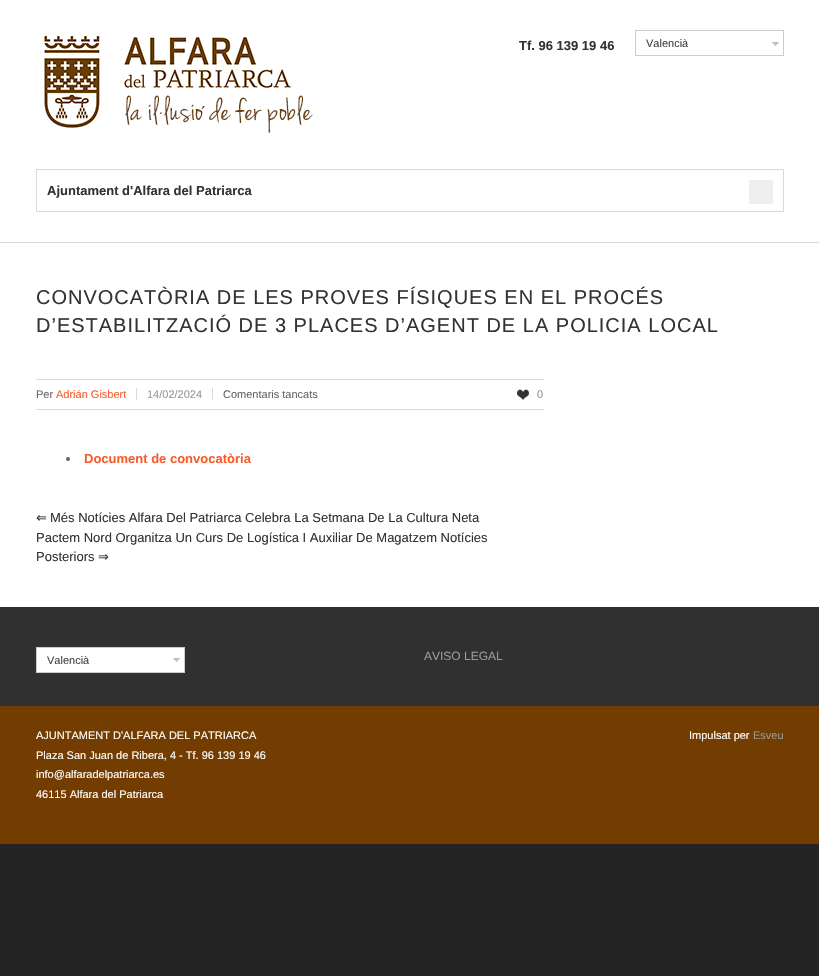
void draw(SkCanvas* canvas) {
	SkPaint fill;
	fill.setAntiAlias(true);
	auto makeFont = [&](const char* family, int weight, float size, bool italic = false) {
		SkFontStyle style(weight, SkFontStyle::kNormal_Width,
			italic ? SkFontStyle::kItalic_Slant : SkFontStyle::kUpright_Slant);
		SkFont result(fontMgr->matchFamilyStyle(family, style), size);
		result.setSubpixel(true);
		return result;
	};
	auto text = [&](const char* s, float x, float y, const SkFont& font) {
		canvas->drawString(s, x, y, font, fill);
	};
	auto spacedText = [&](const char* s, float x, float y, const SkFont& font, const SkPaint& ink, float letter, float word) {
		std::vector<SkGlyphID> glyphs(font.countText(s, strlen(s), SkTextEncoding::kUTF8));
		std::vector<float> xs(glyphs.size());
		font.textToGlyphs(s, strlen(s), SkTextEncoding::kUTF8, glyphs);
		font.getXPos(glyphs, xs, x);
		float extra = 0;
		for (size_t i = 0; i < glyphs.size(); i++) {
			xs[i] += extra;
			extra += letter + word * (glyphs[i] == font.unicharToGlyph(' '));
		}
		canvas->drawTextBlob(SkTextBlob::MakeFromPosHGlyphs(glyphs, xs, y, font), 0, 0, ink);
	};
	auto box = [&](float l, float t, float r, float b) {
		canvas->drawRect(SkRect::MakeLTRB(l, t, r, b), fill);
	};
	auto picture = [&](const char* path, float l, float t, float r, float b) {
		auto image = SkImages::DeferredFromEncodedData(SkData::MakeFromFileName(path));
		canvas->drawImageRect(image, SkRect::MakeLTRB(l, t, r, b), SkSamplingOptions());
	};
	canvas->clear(0xFF242424);
	fill.setColor(0xFFFFFFFF);
	box(0, 0, 819, 607);
	picture("image0.png", 44, 35, 313, 133);
	picture("image1.png", 772, 42, 779, 46);
	fill.setStyle(SkPaint::kStroke_Style);
	fill.setStrokeWidth(1);
	fill.setColor(0xFFCDCDCD);
	canvas->drawRect(SkRect::MakeLTRB(635.5f, 30.5f, 783.5f, 55.5f), fill);
	fill.setStyle(SkPaint::kFill_Style);
	fill.setColor(0xFFD9D9D9);
	box(0, 242, 819, 243);
	fill.setStyle(SkPaint::kStroke_Style);
	canvas->drawRect(SkRect::MakeLTRB(36.5f, 169.5f, 783.5f, 211.5f), fill);
	fill.setStyle(SkPaint::kFill_Style);
	fill.setColor(0xFFEFEFEF);
	box(749, 180, 773, 204);
	fill.setColor(0xFFD9D9D9);
	box(36, 379, 544, 380);
	box(36, 409, 544, 410);
	box(136, 388, 137, 400);
	box(212, 388, 213, 400);
	picture("image2.png", 517, 389, 529, 400);
	fill.setColor(0xFF666666);
	canvas->drawCircle(68, 459, 2, fill);
	fill.setColor(0xFF303030);
	box(0, 607, 819, 706);
	fill.setColor(0xFFFFFFFF);
	box(37, 648, 184, 672);
	picture("image1.png", 173, 658, 180, 662);
	fill.setStyle(SkPaint::kStroke_Style);
	fill.setColor(0xFFCDCDCD);
	canvas->drawRect(SkRect::MakeLTRB(36.5f, 647.5f, 184.5f, 672.5f), fill);
	fill.setStyle(SkPaint::kFill_Style);
	fill.setColor(0xFF733C00);
	box(0, 706, 819, 844);
	auto font1 = makeFont("Liberation Sans", 700, 13);
	fill.setColor(0xFF333333);
	text("Tf. 96 139 19 46", 519, 50, font1);
	auto font2 = makeFont("Liberation Sans", 400, 11);
	fill.setColor(0xFF444444);
	text("Valencià", 646, 47, font2);
	fill.setColor(0xFF333333);
	text("Ajuntament d'Alfara del Patriarca", 47, 195, font1);
	auto font3 = makeFont("Liberation Sans", 400, 20);
	spacedText("CONVOCATÒRIA DE LES PROVES FÍSIQUES EN EL PROCÉS", 36, 304, font3, fill, 1, 0);
	spacedText("D’ESTABILITZACIÓ DE 3 PLACES D’AGENT DE LA POLICIA LOCAL", 36, 332, font3, fill, 1, 0);
	fill.setColor(0xFF666666);
	text("Per", 36, 398, font2);
	fill.setColor(0xFFF55D2D);
	text("Adrián Gisbert", 56, 398, font2);
	fill.setColor(0xFF999999);
	text("14/02/2024", 147, 398, font2);
	fill.setColor(0xFF666666);
	text("Comentaris tancats", 223, 398, font2);
	fill.setColor(0xFF999999);
	text("0", 537, 398, font2);
	fill.setColor(0xFFF55D2D);
	text("Document de convocatòria", 84, 463, font1);
	auto font4 = makeFont("DejaVu Sans", 400, 13);
	fill.setColor(0xFF333333);
	text("⇐", 36, 522, font4);
	auto font5 = makeFont("Liberation Sans", 400, 13);
	text("Més Notícies Alfara Del Patriarca Celebra La Setmana De La Cultura Neta", 50, 522, font5);
	text("Pactem Nord Organitza Un Curs De Logística I Auxiliar De Magatzem Notícies", 36, 542, font5);
	text("Posteriors", 36, 561, font5);
	text("⇒", 98, 561, font4);
	fill.setColor(0xFF444444);
	text("Valencià", 47, 664, font2);
	auto font6 = makeFont("Liberation Sans", 400, 12);
	fill.setColor(0xFF999999);
	text("AVISO LEGAL", 424, 660, font6);
	fill.setColor(0xFFFFFFFF);
	text("AJUNTAMENT D'ALFARA DEL PATRIARCA", 36, 739, font2);
	text("Plaza San Juan de Ribera, 4 - Tf. 96 139 19 46", 36, 759, font2);
	text("info@alfaradelpatriarca.es", 36, 778, font2);
	text("46115 Alfara del Patriarca", 36, 798, font2);
	text("Impulsat per", 689, 739, font2);
	fill.setColor(0xFF999999);
	text("Esveu", 753, 739, font2);
}
